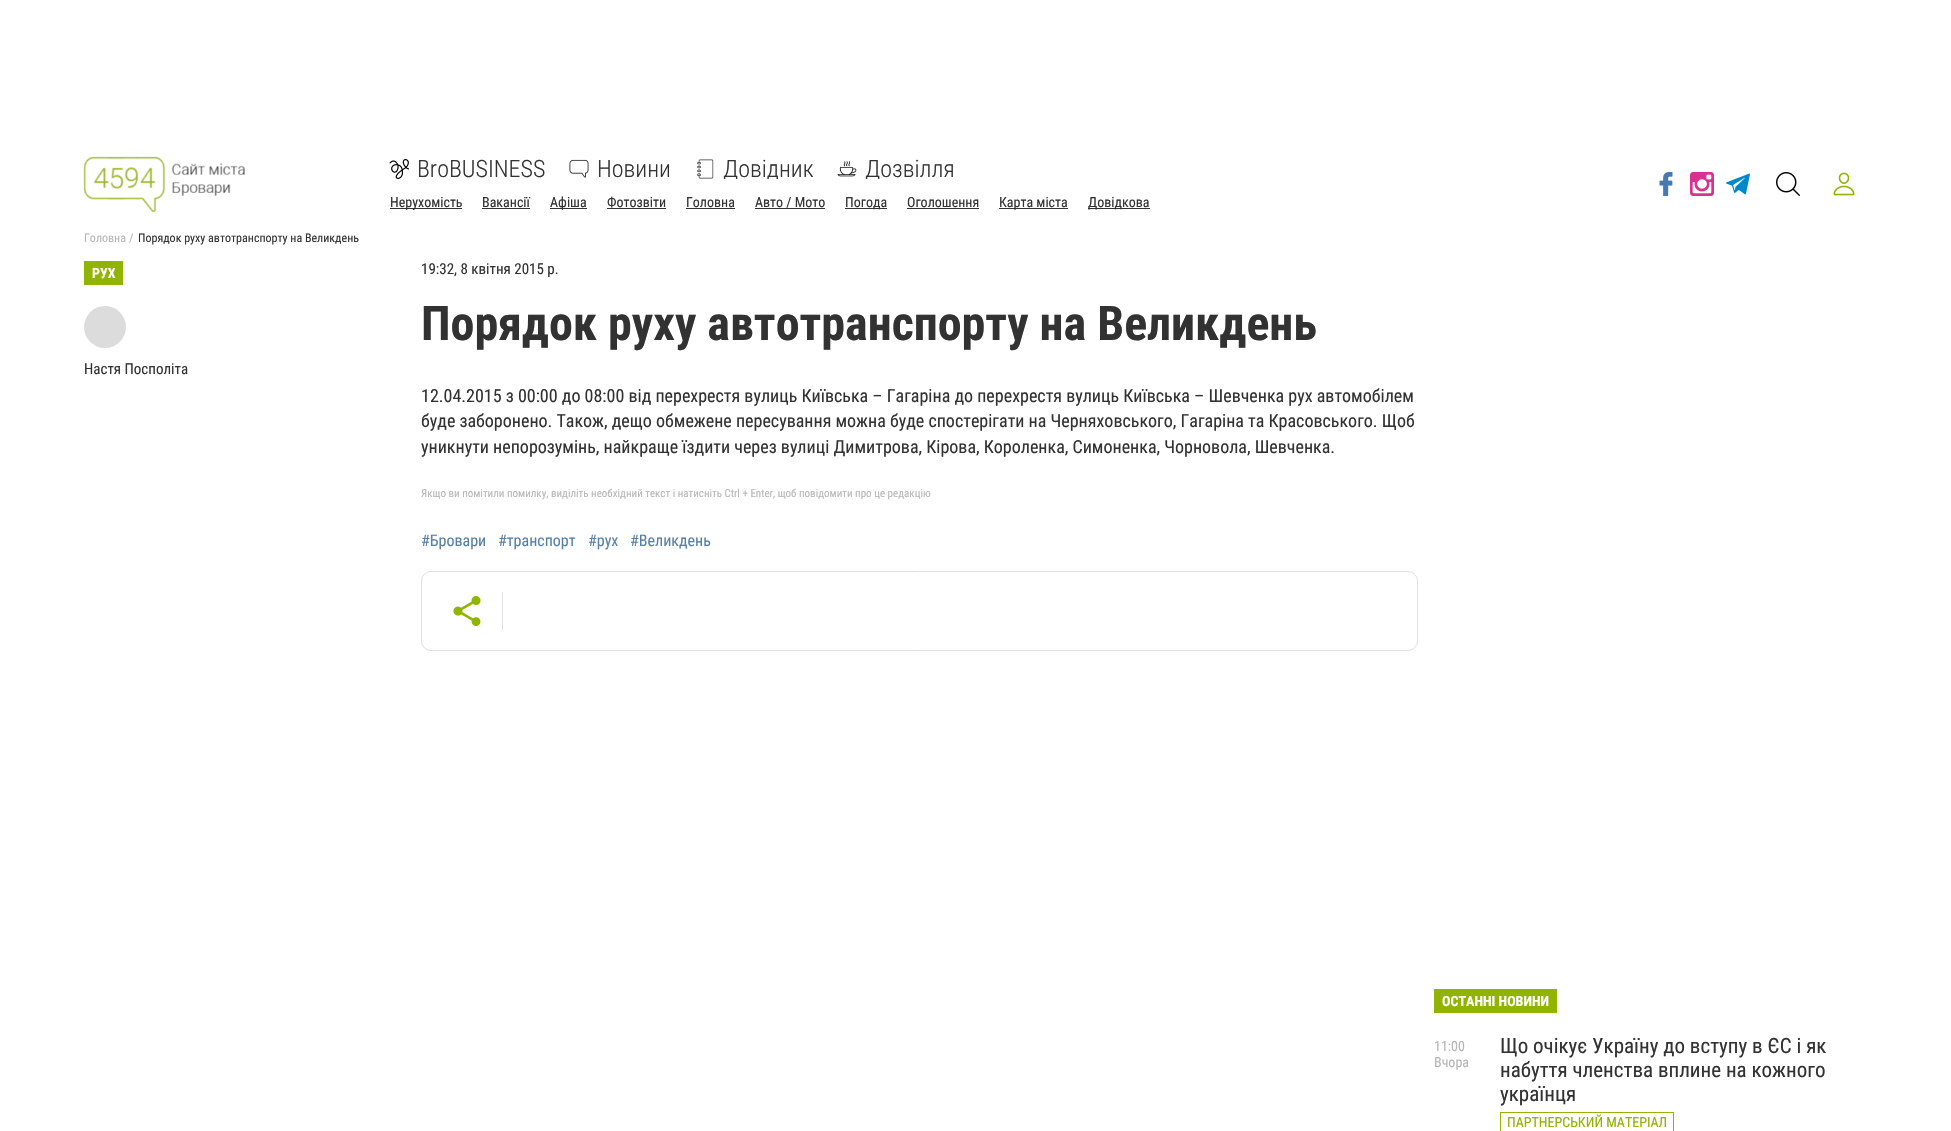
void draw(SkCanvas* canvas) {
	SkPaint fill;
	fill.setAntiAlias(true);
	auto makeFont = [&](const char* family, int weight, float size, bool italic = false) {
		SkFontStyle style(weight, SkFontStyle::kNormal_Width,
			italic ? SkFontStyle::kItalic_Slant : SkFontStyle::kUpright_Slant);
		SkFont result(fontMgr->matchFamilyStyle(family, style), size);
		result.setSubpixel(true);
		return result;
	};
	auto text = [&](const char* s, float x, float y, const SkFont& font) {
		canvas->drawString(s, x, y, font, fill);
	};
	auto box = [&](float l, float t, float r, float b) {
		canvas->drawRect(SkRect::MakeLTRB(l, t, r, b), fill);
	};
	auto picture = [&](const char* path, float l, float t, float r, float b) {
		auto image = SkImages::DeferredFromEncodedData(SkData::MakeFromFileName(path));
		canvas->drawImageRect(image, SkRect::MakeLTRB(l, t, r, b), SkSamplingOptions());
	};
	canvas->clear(0xFFFFFFFF);
	picture("image0.png", 83, 156, 246, 212);
	picture("image1.png", 389, 159, 409, 179);
	picture("image2.png", 569, 159, 589, 178);
	picture("image3.png", 697, 159, 714, 179);
	picture("image4.png", 837, 161, 857, 177);
	fill.setColor(0xFF323232);
	box(390, 208, 462, 209);
	box(482, 208, 530, 209);
	box(550, 208, 587, 209);
	box(607, 208, 666, 209);
	box(686, 208, 735, 209);
	box(755, 208, 825, 209);
	box(845, 208, 887, 209);
	box(907, 208, 979, 209);
	box(999, 208, 1068, 209);
	box(1088, 208, 1150, 209);
	picture("image5.png", 1659, 172, 1673, 196);
	picture("image6.png", 1690, 172, 1714, 196);
	picture("image7.png", 1726, 173, 1750, 195);
	picture("image8.png", 1776, 172, 1800, 196);
	picture("image9.png", 1833, 172, 1855, 196);
	fill.setColor(0xFF90B400);
	box(84, 261, 123, 285);
	fill.setColor(0xFFDCDCDC);
	canvas->drawCircle(105, 327, 21, fill);
	fill.setStyle(SkPaint::kStroke_Style);
	fill.setStrokeWidth(1);
	fill.setColor(0xFFE0E0E0);
	canvas->drawRoundRect(SkRect::MakeLTRB(421.5f, 571.5f, 1417.5f, 650.5f), 9.5f, 9.5f, fill);
	picture("image10.png", 453, 596, 481, 626);
	fill.setStyle(SkPaint::kFill_Style);
	box(502, 592, 503, 630);
	fill.setColor(0xFF90B400);
	box(1434, 989, 1557, 1013);
	fill.setStyle(SkPaint::kStroke_Style);
	canvas->drawRect(SkRect::MakeLTRB(1500.5f, 1112.5f, 1673.5f, 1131.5f), fill);
	auto font1 = makeFont("Roboto Condensed", 300, 24);
	fill.setStyle(SkPaint::kFill_Style);
	fill.setColor(0xFF323232);
	text("BroBUSINESS", 417, 177, font1);
	text("Новини", 597, 177, font1);
	canvas->save();
	canvas->clipRect(SkRect::MakeLTRB(695, 159, 813, 179));
	text("Довідник", 723, 177, font1);
	canvas->restore();
	canvas->save();
	canvas->clipRect(SkRect::MakeLTRB(837, 159, 955, 179));
	text("Дозвілля", 865, 177, font1);
	canvas->restore();
	auto font2 = makeFont("Roboto Condensed", 400, 14);
	text("Нерухомість", 390, 207, font2);
	text("Вакансії", 482, 207, font2);
	text("Афіша", 550, 207, font2);
	text("Фотозвіти", 607, 207, font2);
	text("Головна", 686, 207, font2);
	text("Авто / Мото", 755, 207, font2);
	text("Погода", 845, 207, font2);
	text("Оголошення", 907, 207, font2);
	text("Карта міста", 999, 207, font2);
	text("Довідкова", 1088, 207, font2);
	auto font3 = makeFont("Roboto Condensed", 400, 12);
	fill.setColor(0xFFB7B7B7);
	text("Головна", 84, 242, font3);
	text("/", 129, 242, font3);
	fill.setColor(0xFF323232);
	text("Порядок руху автотранспорту на Великдень", 138, 242, font3);
	auto font4 = makeFont("Roboto Condensed", 700, 14);
	fill.setColor(0xFFFFFFFF);
	text("РУХ", 92, 278, font4);
	auto font5 = makeFont("Roboto Condensed", 400, 15);
	fill.setColor(0xFF323232);
	text("Настя Посполіта", 84, 374, font5);
	text("19:32, 8 квітня 2015 р.", 421, 274, font5);
	auto font6 = makeFont("Roboto Condensed", 700, 48);
	text("Порядок руху автотранспорту на Великдень", 421, 340, font6);
	auto font7 = makeFont("Roboto Condensed", 400, 18);
	text("12.04.2015 з 00:00 до 08:00 від перехрестя вулиць Київська – Гагаріна до перехрестя вулиць Київська – Шевченка рух автомобілем", 421, 402, font7);
	text("буде заборонено. Також, дещо обмежене пересування можна буде спостерігати на Черняховського, Гагаріна та Красовського. Щоб", 421, 427, font7);
	text("уникнути непорозумінь, найкраще їздити через вулиці Димитрова, Кірова, Короленка, Симоненка, Чорновола, Шевченка.", 421, 453, font7);
	auto font8 = makeFont("Roboto Condensed", 400, 11);
	fill.setColor(0xFFB7B7B7);
	text("Якщо ви помітили помилку, виділіть необхідний текст і натисніть Ctrl + Enter, щоб повідомити про це редакцію", 421, 497, font8);
	auto font9 = makeFont("Roboto Condensed", 400, 16);
	fill.setColor(0xFF5680A6);
	text("#Бровари", 421, 546, font9);
	text("#транспорт", 498, 546, font9);
	text("#рух", 588, 546, font9);
	text("#Великдень", 630, 546, font9);
	fill.setColor(0xFFFFFFFF);
	text("ОСТАННІ НОВИНИ", 1442, 1006, font4);
	fill.setColor(0xFFB7B7B7);
	text("11:00", 1434, 1051, font2);
	text("Вчора", 1434, 1067, font2);
	auto font10 = makeFont("Roboto Condensed", 400, 21);
	fill.setColor(0xFF323232);
	text("Що очікує Україну до вступу в ЄС і як", 1500, 1053, font10);
	text("набуття членства вплине на кожного", 1500, 1077, font10);
	text("українця", 1500, 1101, font10);
	fill.setColor(0xFF90B400);
	text("ПАРТНЕРСЬКИЙ МАТЕРІАЛ", 1507, 1127, font2);
}
